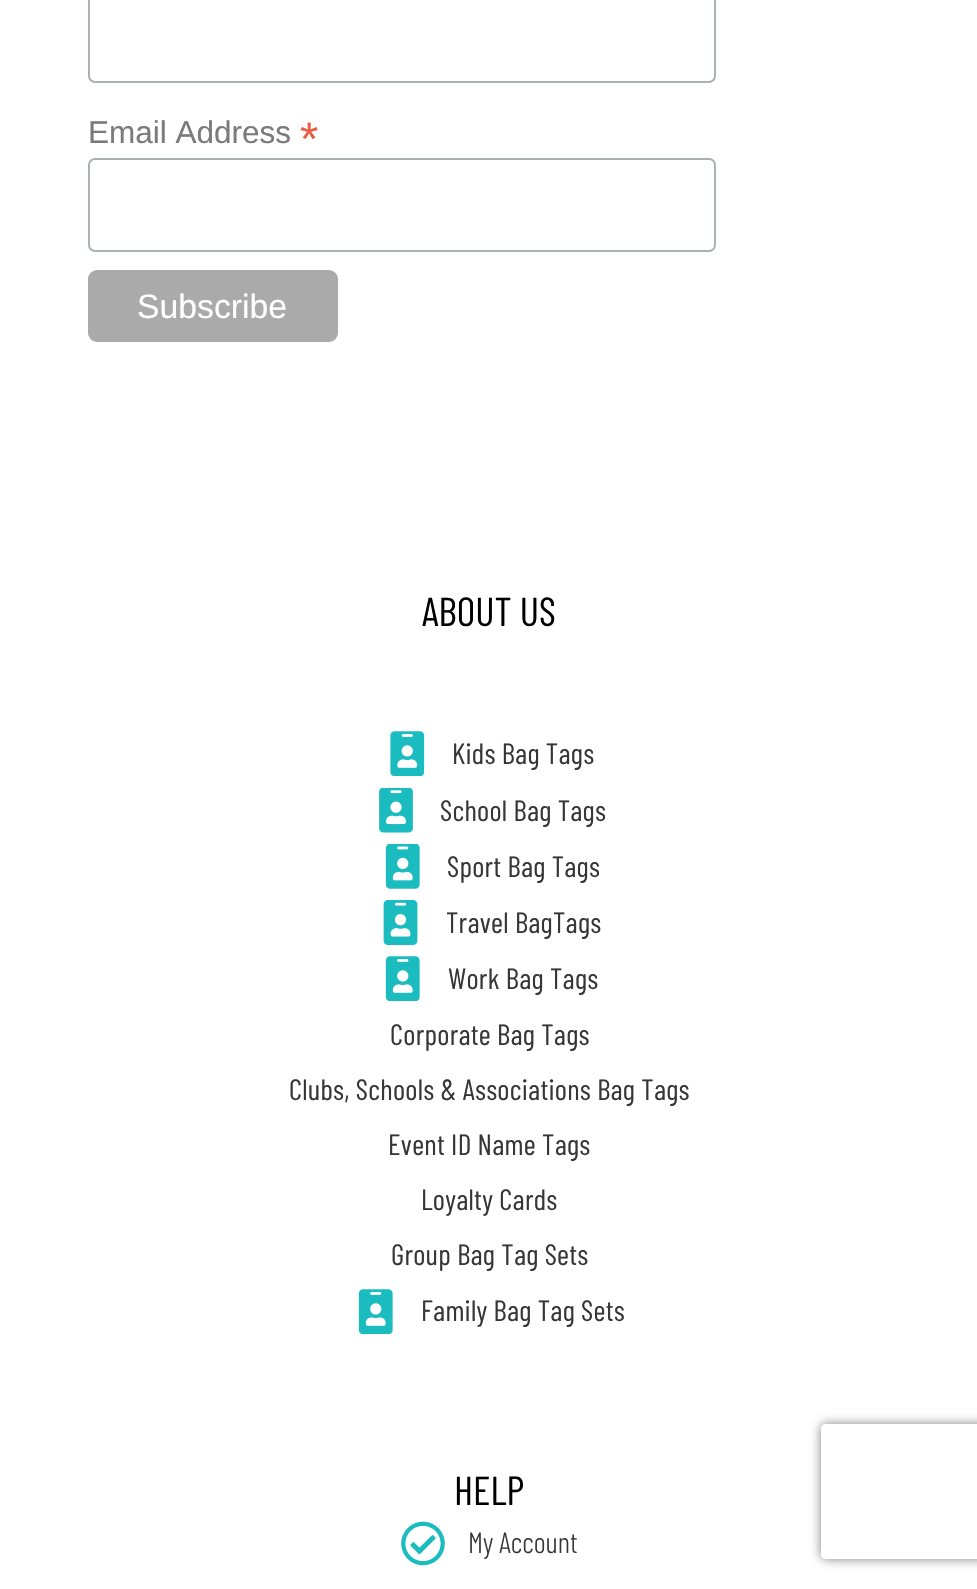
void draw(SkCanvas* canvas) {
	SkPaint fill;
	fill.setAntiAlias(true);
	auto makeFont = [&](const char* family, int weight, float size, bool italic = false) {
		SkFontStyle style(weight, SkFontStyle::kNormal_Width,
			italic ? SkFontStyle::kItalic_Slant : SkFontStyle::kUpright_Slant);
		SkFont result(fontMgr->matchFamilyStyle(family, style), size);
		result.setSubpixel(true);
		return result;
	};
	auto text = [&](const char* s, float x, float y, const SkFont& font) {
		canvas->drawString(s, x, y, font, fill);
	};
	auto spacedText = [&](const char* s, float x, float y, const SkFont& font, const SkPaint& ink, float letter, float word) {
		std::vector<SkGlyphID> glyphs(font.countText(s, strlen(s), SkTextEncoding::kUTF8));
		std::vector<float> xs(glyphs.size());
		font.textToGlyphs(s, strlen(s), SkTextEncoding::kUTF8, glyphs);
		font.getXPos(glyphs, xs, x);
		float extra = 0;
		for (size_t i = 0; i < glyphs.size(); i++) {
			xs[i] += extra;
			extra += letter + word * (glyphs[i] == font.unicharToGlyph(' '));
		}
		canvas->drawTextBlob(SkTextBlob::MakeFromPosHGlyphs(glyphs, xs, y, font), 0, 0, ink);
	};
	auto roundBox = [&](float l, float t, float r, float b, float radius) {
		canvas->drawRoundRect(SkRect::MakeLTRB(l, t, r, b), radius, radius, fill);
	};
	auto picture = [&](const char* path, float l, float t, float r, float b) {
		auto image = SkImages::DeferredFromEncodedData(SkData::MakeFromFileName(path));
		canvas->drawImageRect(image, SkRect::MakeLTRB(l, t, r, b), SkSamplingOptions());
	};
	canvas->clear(0xFFFFFFFF);
	fill.setStyle(SkPaint::kStroke_Style);
	fill.setStrokeWidth(2);
	fill.setColor(0xFFABB0B2);
	canvas->drawRoundRect(SkRect::MakeLTRB(89, -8, 715, 82), 6, 6, fill);
	canvas->drawRoundRect(SkRect::MakeLTRB(89, 159, 715, 251), 6, 6, fill);
	fill.setStyle(SkPaint::kFill_Style);
	fill.setColor(0xFFAAAAAA);
	roundBox(88, 270, 338, 342, 9);
	picture("image0.png", 390, 731, 425, 776);
	picture("image1.png", 379, 788, 413, 833);
	picture("image2.png", 385, 844, 420, 889);
	picture("image3.png", 383, 900, 418, 945);
	picture("image4.png", 385, 956, 420, 1001);
	picture("image4.png", 358, 1289, 393, 1334);
	picture("image5.png", 401, 1521, 445, 1566);
	canvas->save();
	canvas->clipPath(SkPathBuilder(SkPathFillType::kEvenOdd).moveTo(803, 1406).lineTo(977, 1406).lineTo(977, 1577).lineTo(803, 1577).close().moveTo(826, 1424).lineTo(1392, 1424).cubicTo(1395, 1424, 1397, 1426, 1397, 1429).lineTo(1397, 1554).cubicTo(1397, 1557, 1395, 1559, 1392, 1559).lineTo(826, 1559).cubicTo(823, 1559, 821, 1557, 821, 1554).lineTo(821, 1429).cubicTo(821, 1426, 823, 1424, 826, 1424).close().detach(), true);
	fill.setColor(0xFF808080);
	fill.setMaskFilter(SkMaskFilter::MakeBlur(kNormal_SkBlurStyle, 5.5f));
	canvas->drawRoundRect(SkRect::MakeLTRB(821, 1424, 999, 1559), 5, 5, fill);
	fill.setMaskFilter(nullptr);
	canvas->restore();
	auto font1 = makeFont("Liberation Sans", 400, 31.5f);
	fill.setColor(0xFF7A7A7A);
	text("Email Address", 88, 143, font1);
	auto font2 = makeFont("Liberation Sans", 400, 47);
	fill.setColor(0xFFE85C41);
	text("*", 300, 155, font2);
	auto font3 = makeFont("Liberation Sans", 400, 33.75f);
	fill.setColor(0xFFFFFFFF);
	text("Subscribe", 137, 318, font3);
	auto font4 = makeFont("Barlow Condensed", 400, 40.5f);
	fill.setColor(0xFF000000);
	text("ABOUT US", 422, 626, font4);
	auto font5 = makeFont("Barlow Condensed", 400, 29.25f);
	fill.setColor(0xFF363636);
	spacedText("Kids Bag Tags", 452, 764, font5, fill, 0.25f, 0);
	spacedText("School Bag Tags", 440, 821, font5, fill, 0.25f, 0);
	spacedText("Sport Bag Tags", 447, 877, font5, fill, 0.25f, 0);
	spacedText("Travel BagTags", 446, 933, font5, fill, 0.25f, 0);
	spacedText("Work Bag Tags", 448, 989, font5, fill, 0.25f, 0);
	spacedText("Corporate Bag Tags", 390, 1045, font5, fill, 0.25f, 0);
	spacedText("Clubs, Schools & Associations Bag Tags", 289, 1100, font5, fill, 0.25f, 0);
	spacedText("Event ID Name Tags", 388, 1155, font5, fill, 0.25f, 0);
	spacedText("Loyalty Cards", 421, 1210, font5, fill, 0.25f, 0);
	spacedText("Group Bag Tag Sets", 391, 1265, font5, fill, 0.25f, 0);
	spacedText("Family Bag Tag Sets", 421, 1321, font5, fill, 0.25f, 0);
	fill.setColor(0xFF000000);
	text("HELP", 454, 1505, font4);
	auto font6 = makeFont("Barlow Condensed", 300, 29.25f);
	fill.setColor(0xFF363636);
	text("My Account", 468, 1553, font6);
}
